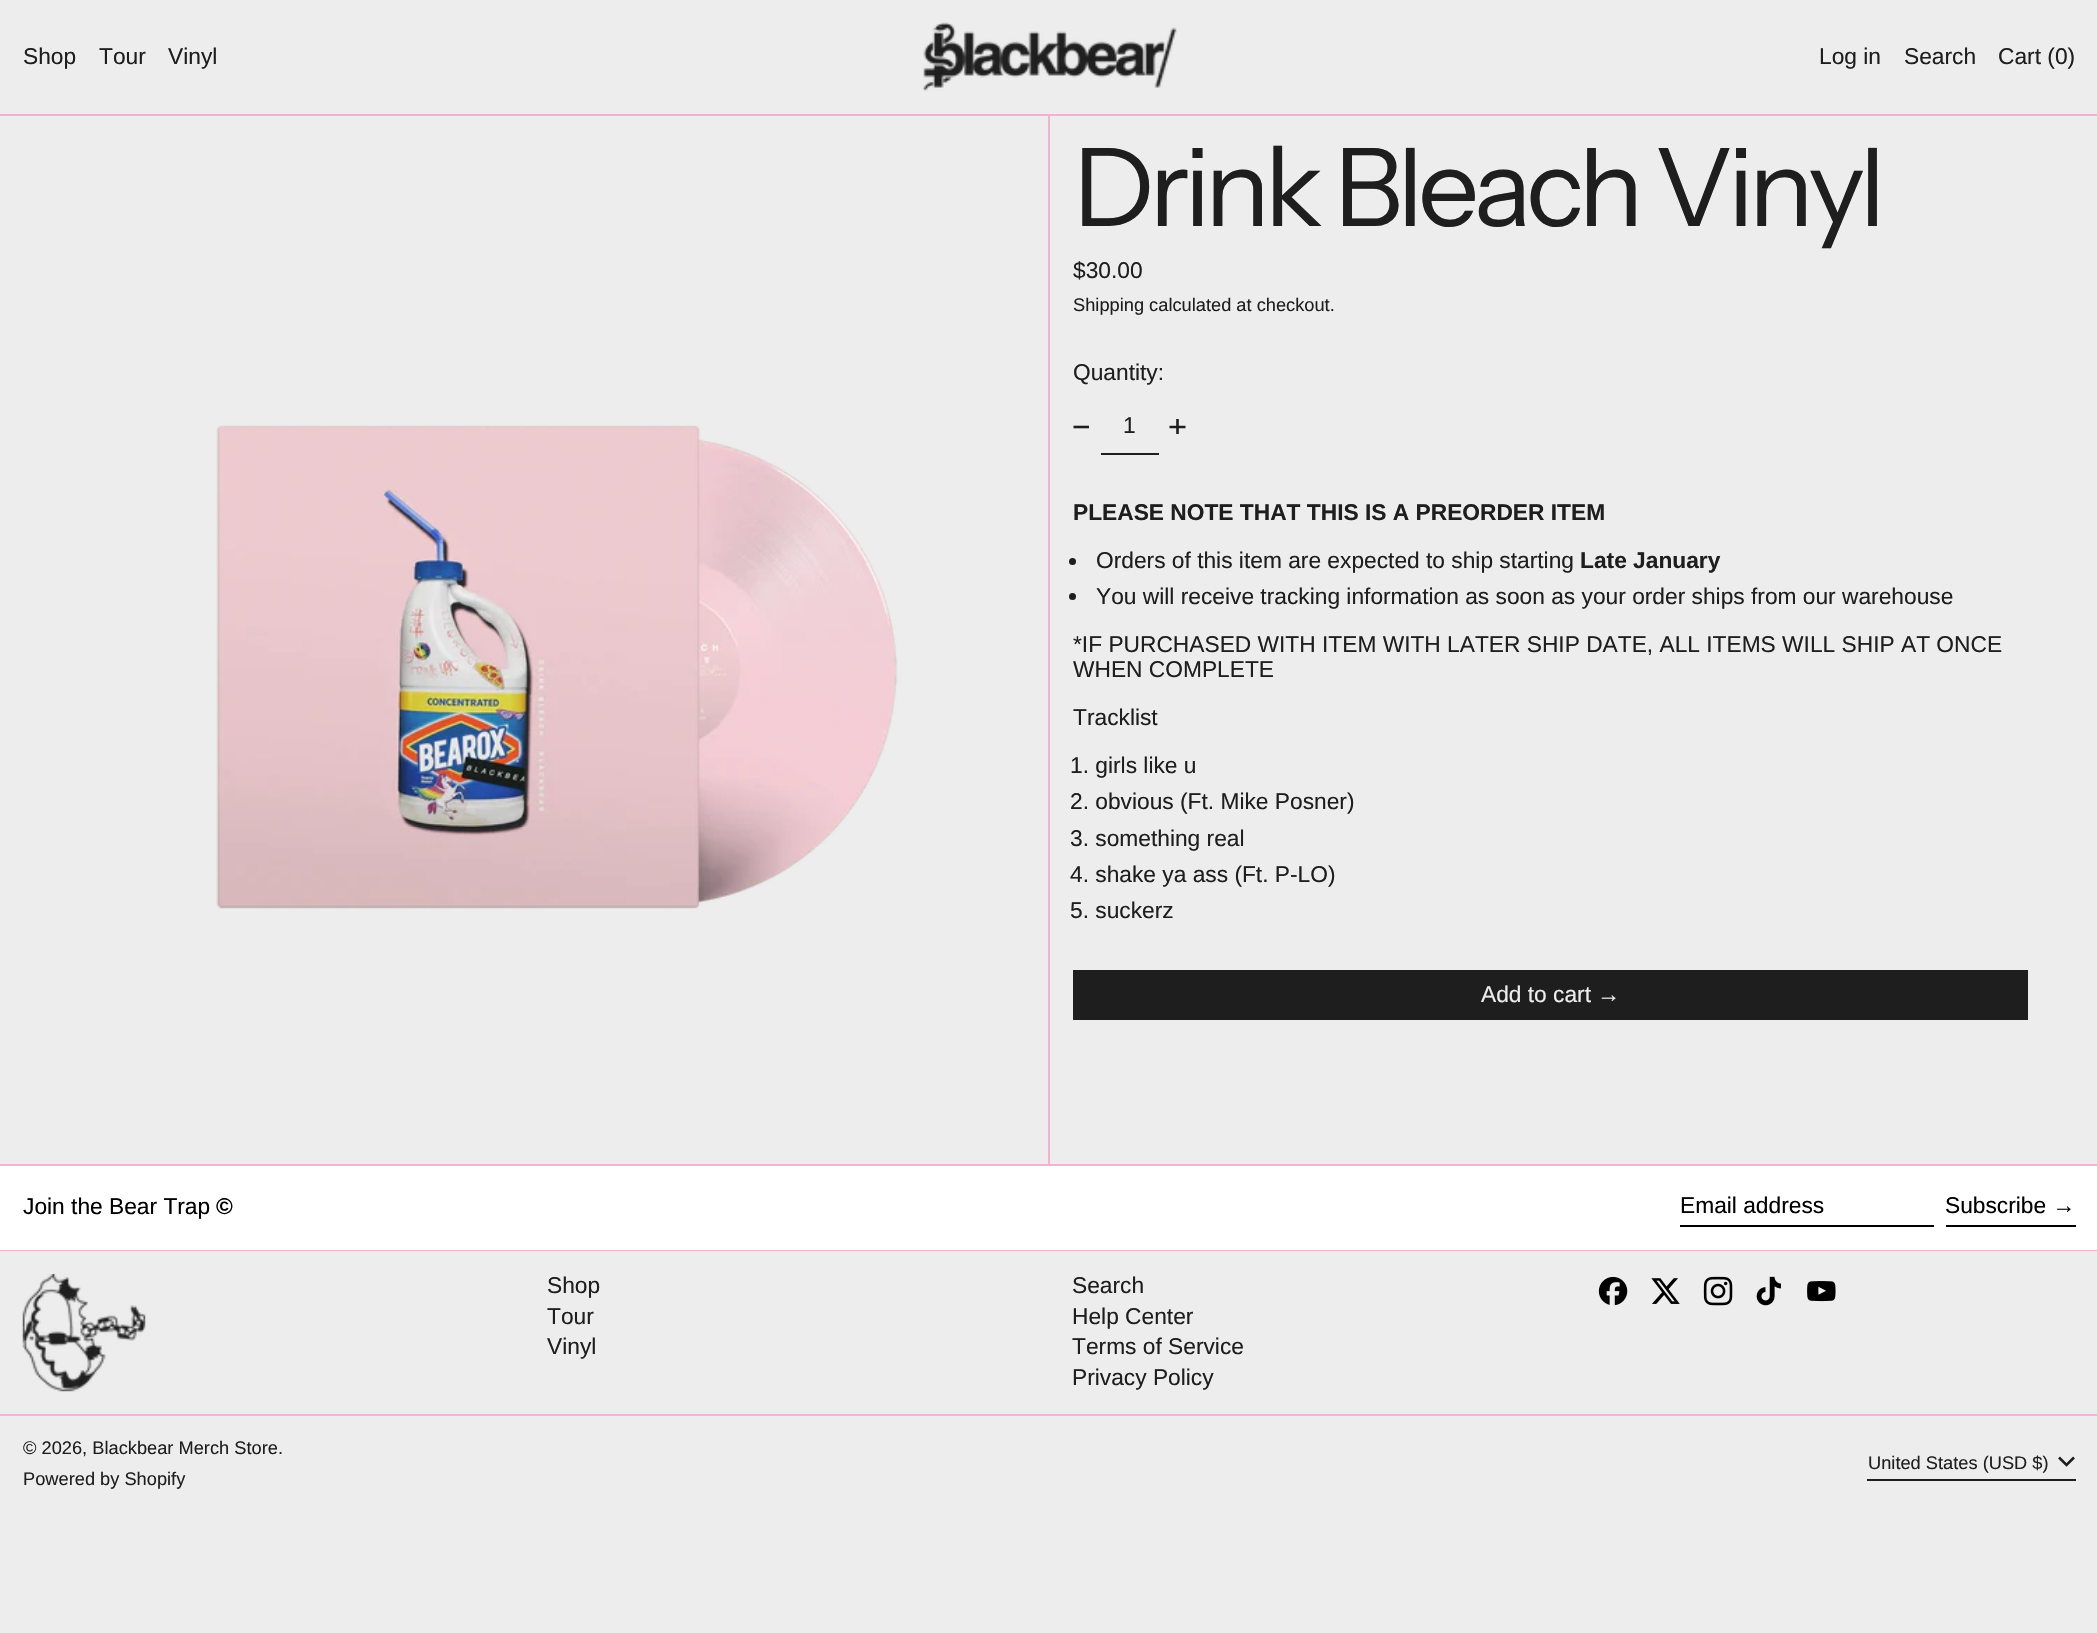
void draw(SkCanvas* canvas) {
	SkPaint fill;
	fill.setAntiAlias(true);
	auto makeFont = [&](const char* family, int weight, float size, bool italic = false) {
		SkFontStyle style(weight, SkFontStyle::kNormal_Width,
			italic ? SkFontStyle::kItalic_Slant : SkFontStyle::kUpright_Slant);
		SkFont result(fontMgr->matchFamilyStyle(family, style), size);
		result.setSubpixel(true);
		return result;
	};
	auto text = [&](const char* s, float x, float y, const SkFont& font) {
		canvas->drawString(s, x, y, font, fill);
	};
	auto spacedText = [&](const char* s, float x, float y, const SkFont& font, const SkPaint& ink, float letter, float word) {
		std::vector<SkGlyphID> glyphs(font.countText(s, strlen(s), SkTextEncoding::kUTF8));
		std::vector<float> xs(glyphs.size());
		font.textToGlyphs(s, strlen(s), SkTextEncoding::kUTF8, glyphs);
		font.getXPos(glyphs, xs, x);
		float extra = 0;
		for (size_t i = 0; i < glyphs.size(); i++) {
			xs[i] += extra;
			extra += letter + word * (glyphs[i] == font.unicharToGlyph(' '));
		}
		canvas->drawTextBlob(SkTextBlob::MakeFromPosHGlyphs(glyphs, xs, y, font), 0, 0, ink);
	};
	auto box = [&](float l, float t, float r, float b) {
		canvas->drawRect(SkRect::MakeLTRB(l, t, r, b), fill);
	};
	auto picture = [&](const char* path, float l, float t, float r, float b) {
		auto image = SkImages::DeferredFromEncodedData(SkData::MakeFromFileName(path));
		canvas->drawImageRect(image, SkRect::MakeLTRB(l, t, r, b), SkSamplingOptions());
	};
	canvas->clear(0xFFEDEDED);
	fill.setColor(0xFFF3B2D4);
	box(0, 114, 2097, 116);
	picture("image0.png", 923, 22, 1177, 91);
	box(1048, 116, 1050, 1164);
	box(0, 1164, 2097, 1166);
	picture("image1.png", 216, 425, 898, 909);
	fill.setStyle(SkPaint::kStroke_Style);
	fill.setStrokeWidth(2.6f);
	fill.setColor(0xFF1F1E1F);
	canvas->drawPath(SkPathBuilder().moveTo(1073.5f, 427).lineTo(1089, 427).detach(), fill);
	fill.setStyle(SkPaint::kFill_Style);
	box(1101, 453, 1159, 455);
	canvas->save();
	canvas->clipRect(SkRect::MakeLTRB(1169, 418, 1187, 434));
	fill.setStyle(SkPaint::kStroke_Style);
	canvas->drawPath(SkPathBuilder().moveTo(1177.5f, 419).lineTo(1177.5f, 434.5f).moveTo(1169.5f, 427).lineTo(1185.5f, 427).detach(), fill);
	canvas->restore();
	fill.setStyle(SkPaint::kFill_Style);
	canvas->drawCircle(1072.5f, 561.5f, 3.5f, fill);
	canvas->drawCircle(1072.5f, 596.5f, 3.5f, fill);
	box(1073, 970, 2028, 1020);
	fill.setColor(0xFFFFFFFF);
	box(0, 1166, 2097, 1250);
	fill.setColor(0xFFF3B2D4);
	box(0, 1250, 2097, 1251);
	fill.setColor(0xFF000000);
	box(1680, 1225, 1934, 1227);
	box(1946, 1225, 2076, 1227);
	fill.setColor(0xFFF3B2D4);
	box(0, 1414, 2097, 1416);
	picture("image2.png", 22, 1274, 146, 1392);
	picture("image3.png", 1598, 1276, 1628, 1306);
	picture("image4.png", 1651, 1278, 1680, 1304);
	picture("image5.png", 1703, 1276, 1733, 1306);
	picture("image6.png", 1756, 1276, 1781, 1306);
	picture("image7.png", 1807, 1281, 1836, 1302);
	fill.setColor(0xFF1F1E1F);
	box(1867, 1479, 2076, 1481);
	fill.setStyle(SkPaint::kStroke_Style);
	canvas->drawPath(SkPathBuilder().moveTo(2059, 1457.5f).lineTo(2066.5f, 1465).lineTo(2074, 1457.5f).detach(), fill);
	auto font1 = makeFont("Liberation Sans", 400, 22.75f);
	fill.setStyle(SkPaint::kFill_Style);
	text("Shop", 23, 64, font1);
	text("Tour", 99, 64, font1);
	text("Vinyl", 168, 64, font1);
	text("Log in", 1819, 64, font1);
	text("Search", 1904, 64, font1);
	text("Cart (0)", 1998, 64, font1);
	auto font2 = makeFont("Instrument Sans", 400, 108.5f);
	spacedText("Drink Bleach Vinyl", 1073, 226, font2, fill, -5.4f, 0);
	text("$30.00", 1073, 278, font1);
	auto font3 = makeFont("Liberation Sans", 400, 18.25f);
	text("Shipping calculated at checkout.", 1073, 311, font3);
	text("Quantity:", 1073, 380, font1);
	text("1", 1123, 433, font1);
	auto font4 = makeFont("Liberation Sans", 700, 22.75f);
	text("PLEASE NOTE THAT THIS IS A PREORDER ITEM", 1073, 520, font4);
	text("Orders of this item are expected to ship starting", 1096, 568, font1);
	text("Late January", 1580, 568, font4);
	text("You will receive tracking information as soon as your order ships from our warehouse", 1096, 604, font1);
	text("*IF PURCHASED WITH ITEM WITH LATER SHIP DATE, ALL ITEMS WILL SHIP AT ONCE", 1073, 652, font1);
	text("WHEN COMPLETE", 1073, 677, font1);
	text("Tracklist", 1073, 725, font1);
	text("1. girls like u", 1070, 773, font1);
	text("2. obvious (Ft. Mike Posner)", 1070, 809, font1);
	text("3. something real", 1070, 846, font1);
	text("4. shake ya ass (Ft. P-LO)", 1070, 882, font1);
	text("5. suckerz", 1070, 918, font1);
	fill.setColor(0xFFEDEDED);
	text("Add to cart →", 1481, 1002, font1);
	fill.setColor(0xFF000000);
	text("Join the Bear Trap", 23, 1214, font1);
	text("©", 216, 1214, font4);
	text("Email address", 1680, 1213, font1);
	text("Subscribe →", 1945, 1213, font1);
	fill.setColor(0xFF1F1E1F);
	text("Shop", 547, 1293, font1);
	text("Tour", 547, 1324, font1);
	text("Vinyl", 547, 1354, font1);
	text("Search", 1072, 1293, font1);
	text("Help Center", 1072, 1324, font1);
	text("Terms of Service", 1072, 1354, font1);
	text("Privacy Policy", 1072, 1385, font1);
	text("© 2026, Blackbear Merch Store.", 23, 1454, font3);
	text("Powered by Shopify", 23, 1485, font3);
	text("United States (USD $)", 1868, 1469, font3);
}
